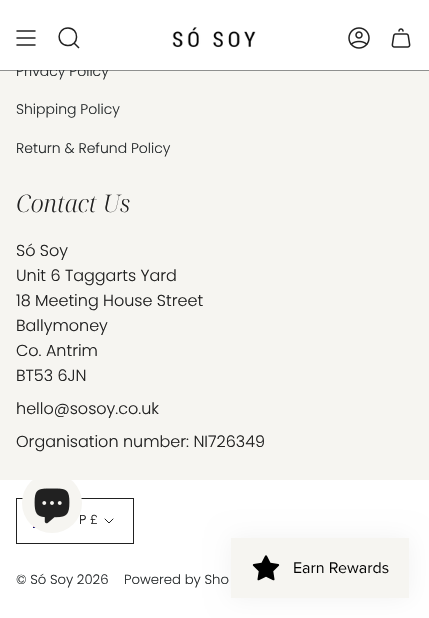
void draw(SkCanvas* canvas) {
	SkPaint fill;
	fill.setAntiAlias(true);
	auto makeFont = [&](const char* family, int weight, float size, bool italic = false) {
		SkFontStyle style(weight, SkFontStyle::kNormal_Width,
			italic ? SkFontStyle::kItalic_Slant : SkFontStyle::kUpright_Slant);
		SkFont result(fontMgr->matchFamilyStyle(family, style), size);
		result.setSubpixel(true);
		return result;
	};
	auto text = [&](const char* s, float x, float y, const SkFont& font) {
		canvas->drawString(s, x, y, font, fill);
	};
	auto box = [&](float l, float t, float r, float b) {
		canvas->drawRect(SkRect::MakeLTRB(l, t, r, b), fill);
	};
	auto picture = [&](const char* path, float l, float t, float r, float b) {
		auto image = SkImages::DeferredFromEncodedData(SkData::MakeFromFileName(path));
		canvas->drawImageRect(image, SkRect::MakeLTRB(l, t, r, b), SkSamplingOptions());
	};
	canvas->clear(0xFFFFFFFF);
	fill.setStyle(SkPaint::kStroke_Style);
	fill.setStrokeWidth(1.5f);
	fill.setStrokeCap(SkPaint::kRound_Cap);
	fill.setStrokeJoin(SkPaint::kRound_Join);
	fill.setColor(0xFF212121);
	canvas->drawPath(SkPathBuilder().moveTo(17, 31).lineTo(35, 31).moveTo(17, 38).lineTo(35, 38).moveTo(17, 45).lineTo(35, 45).detach(), fill);
	fill.setStrokeCap(SkPaint::kButt_Cap);
	fill.setStrokeJoin(SkPaint::kMiter_Join);
	canvas->drawPath(SkPathBuilder().moveTo(68, 28).cubicTo(79.5f, 28, 79.5f, 46, 67.5f, 45.5f).cubicTo(56, 45, 56.5f, 28, 68, 28).close().moveTo(74, 43).lineTo(79, 48).detach(), fill);
	picture("image0.png", 172, 27, 256, 48);
	picture("image1.png", 348, 27, 370, 49);
	picture("image2.png", 391, 28, 411, 48);
	fill.setStyle(SkPaint::kFill_Style);
	fill.setColor(0xFFF6F5F1);
	box(0, 70, 429, 480);
	fill.setStyle(SkPaint::kStroke_Style);
	fill.setStrokeWidth(1);
	fill.setColor(0xFF212121);
	canvas->drawRect(SkRect::MakeLTRB(16.5f, 498.5f, 133.5f, 543.5f), fill);
	picture("image3.png", 33, 526, 36, 528);
	fill.setStrokeCap(SkPaint::kRound_Cap);
	fill.setStrokeJoin(SkPaint::kRound_Join);
	canvas->drawPath(SkPathBuilder().moveTo(105, 519).lineTo(109, 523).lineTo(113, 519).detach(), fill);
	fill.setStyle(SkPaint::kFill_Style);
	fill.setColor(0x0D000000);
	fill.setMaskFilter(SkMaskFilter::MakeBlur(kNormal_SkBlurStyle, 12.5f));
	canvas->drawRect(SkRect::MakeLTRB(231, 538, 409, 598), fill);
	fill.setMaskFilter(nullptr);
	picture("image5.png", 231, 538, 409, 598);
	auto font1 = makeFont("Poppins", 300, 14);
	fill.setColor(0xFF282C2E);
	text("Privacy Policy", 16, 76, font1);
	fill.setColor(0x80282C2E);
	box(0, 70, 429, 71);
	fill.setColor(0xFFFFFFFF);
	box(17, 65, 109, 70);
	fill.setColor(0xFF282C2E);
	text("Shipping Policy", 16, 114, font1);
	text("Return & Refund Policy", 16, 153, font1);
	auto font2 = makeFont("Noto Serif Display", 300, 24, true);
	fill.setColor(0xFF212121);
	text("Contact Us", 16, 212, font2);
	auto font3 = makeFont("Poppins", 300, 16);
	text("Só Soy", 16, 256, font3);
	text("Unit 6 Taggarts Yard", 16, 281, font3);
	text("18 Meeting House Street", 16, 306, font3);
	text("Ballymoney", 16, 331, font3);
	text("Co. Antrim", 16, 356, font3);
	text("BT53 6JN", 16, 381, font3);
	text("hello@sosoy.co.uk", 16, 414, font3);
	text("Organisation number: NI726349", 16, 447, font3);
	auto font4 = makeFont("Poppins", 300, 13);
	text("P £", 79, 524, font4);
	auto font5 = makeFont("Poppins", 300, 13.25f);
	fill.setColor(0xFF282C2E);
	text("© Só Soy 2026", 16, 584, font5);
	text("Powered by Sho", 124, 584, font5);
	fill.setColor(0xFFF6F5F1);
	canvas->drawCircle(52, 503, 30, fill);
	picture("image4.png", 34, 488, 70, 524);
}
